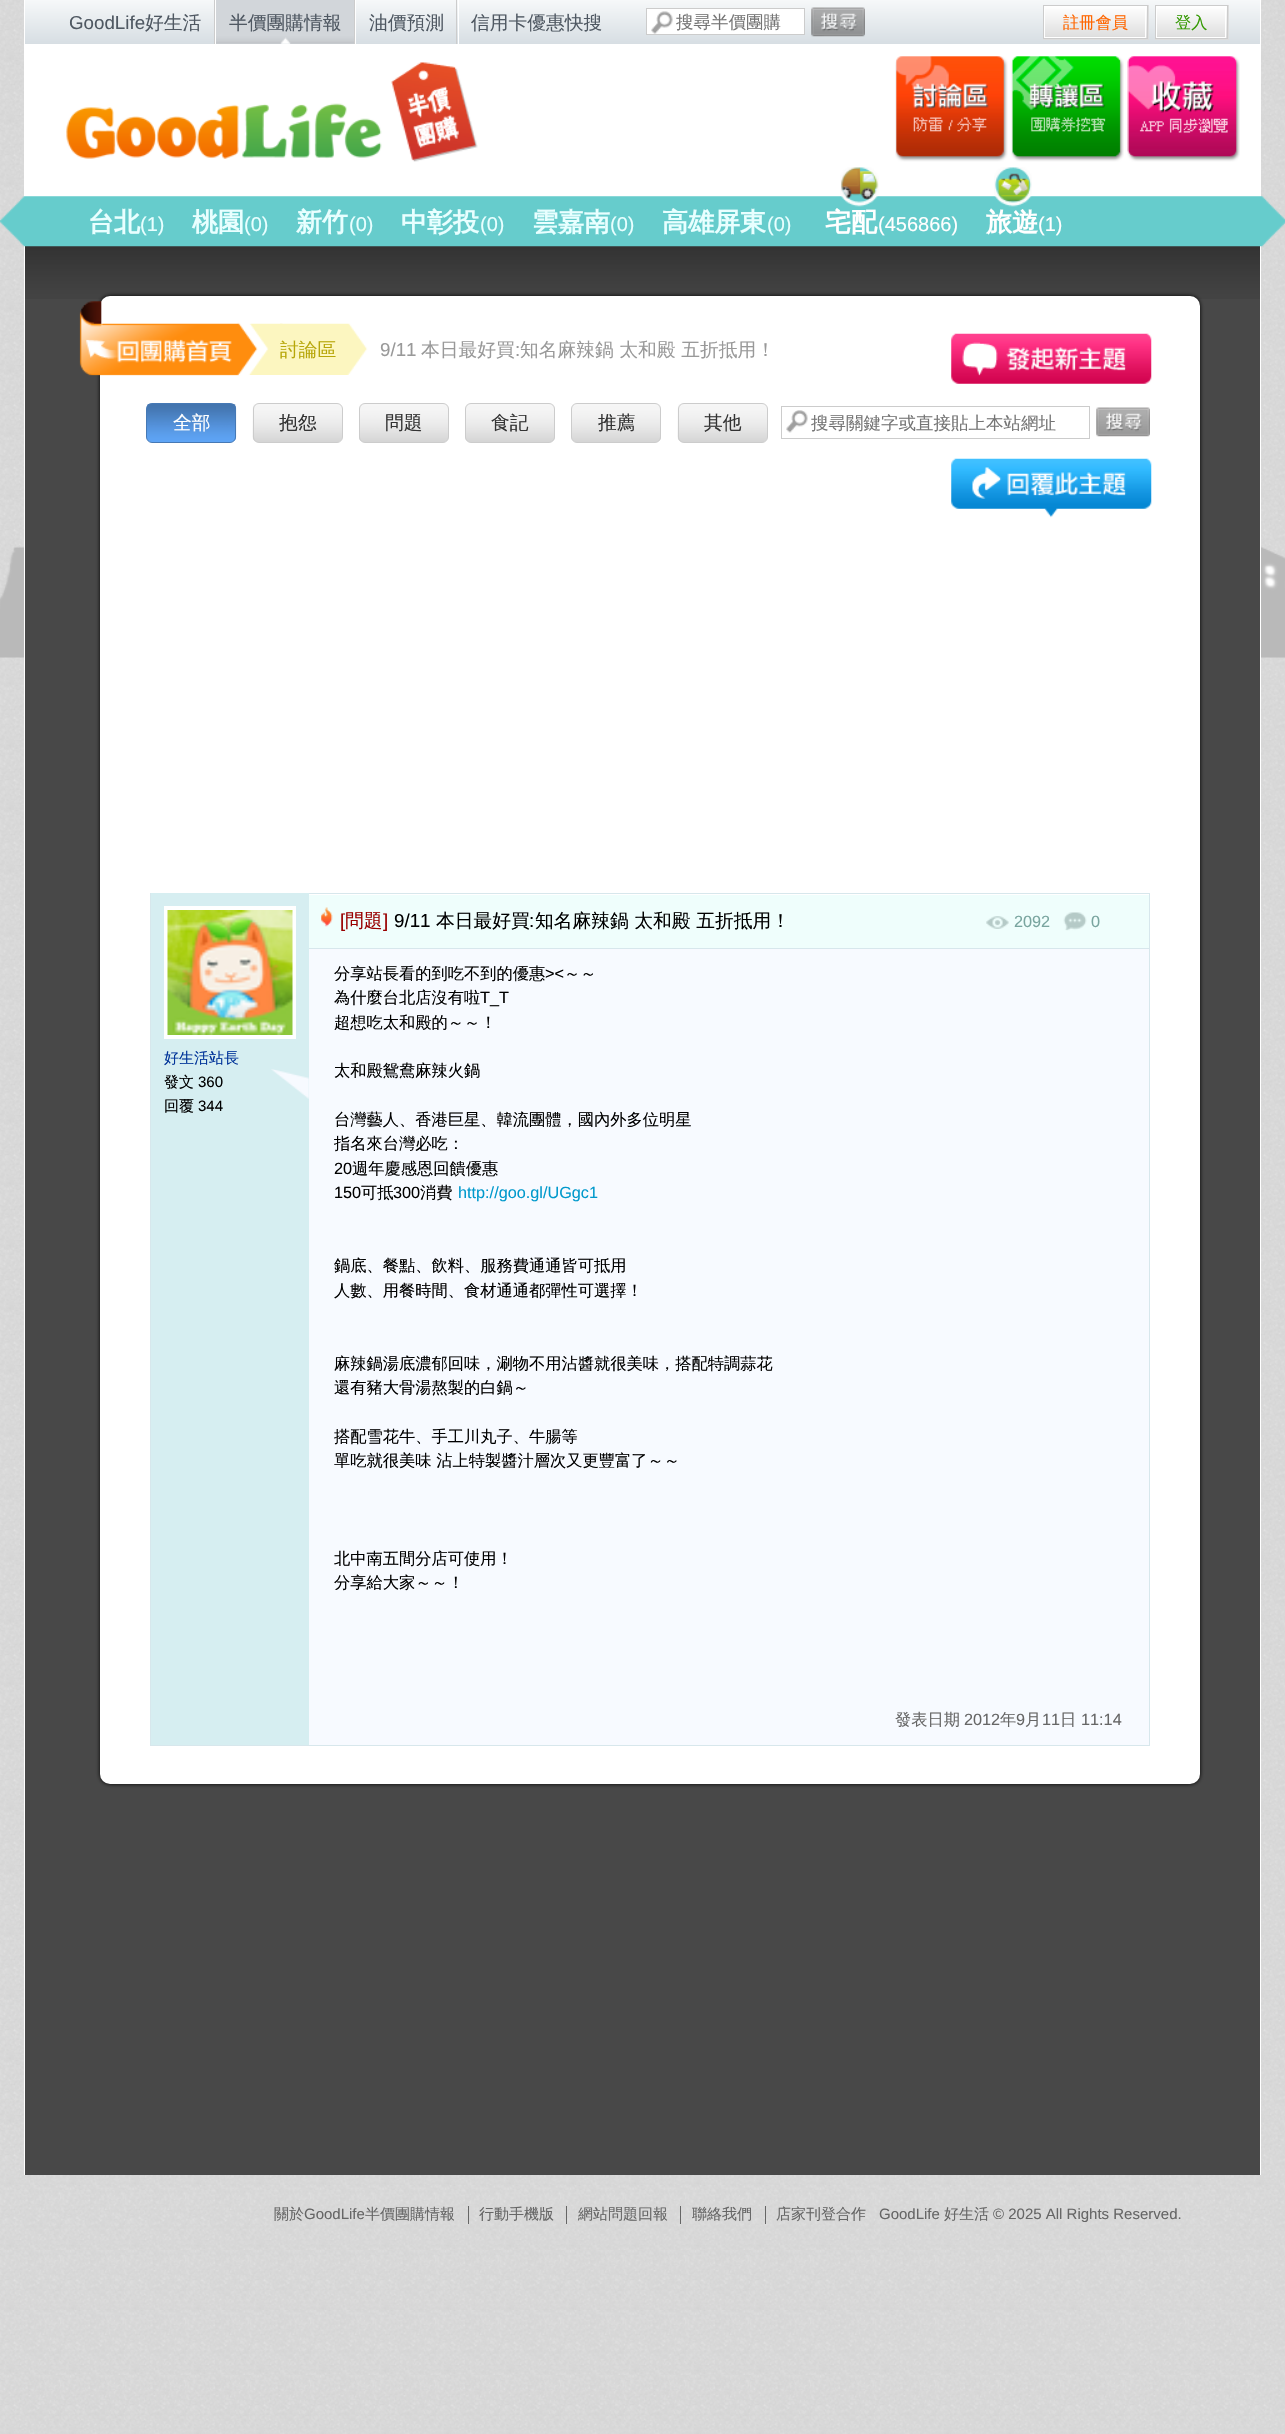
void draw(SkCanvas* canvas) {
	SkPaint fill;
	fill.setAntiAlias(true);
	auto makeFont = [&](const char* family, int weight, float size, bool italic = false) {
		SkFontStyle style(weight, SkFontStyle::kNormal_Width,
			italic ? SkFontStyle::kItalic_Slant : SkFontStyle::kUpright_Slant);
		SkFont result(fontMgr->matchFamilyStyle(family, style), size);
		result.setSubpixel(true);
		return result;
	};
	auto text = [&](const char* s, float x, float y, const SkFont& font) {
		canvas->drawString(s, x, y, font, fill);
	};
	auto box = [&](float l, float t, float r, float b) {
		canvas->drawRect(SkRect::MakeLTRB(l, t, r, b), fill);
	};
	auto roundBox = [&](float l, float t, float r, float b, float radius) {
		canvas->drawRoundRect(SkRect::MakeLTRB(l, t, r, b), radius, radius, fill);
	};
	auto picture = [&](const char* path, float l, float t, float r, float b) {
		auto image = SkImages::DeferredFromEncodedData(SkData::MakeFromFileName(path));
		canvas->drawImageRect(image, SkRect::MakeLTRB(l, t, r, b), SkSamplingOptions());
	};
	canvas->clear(0xFFFFFFFF);
	picture("image0.png", 0, 0, 1285, 2434);
	picture("image1.png", 0, 546, 1285, 658);
	{
		const SkColor colors[] = {0xFFF6F8F9, 0xFFD7DEE3};
		const float stops[] = {0, 0.99f};
		const SkPoint ends[] = {{25, 0}, {25, 44}};
		fill.setShader(SkGradientShader::MakeLinear(ends, colors, stops, 2, SkTileMode::kClamp));
		fill.setAlpha(255);
	}
	box(25, 0, 1260, 44);
	fill.setShader(nullptr);
	fill.setColor(0xFFFFFFFF);
	box(1260, 0, 1261, 44);
	box(24, 0, 25, 44);
	fill.setColor(0xFFCCCCCC);
	box(214, 0, 215, 44);
	picture("image2.png", 216, 0, 354, 44);
	box(354, 0, 355, 44);
	fill.setColor(0xFFFFFFFF);
	box(215, 0, 216, 44);
	fill.setColor(0xFFCCCCCC);
	box(456, 0, 457, 44);
	fill.setColor(0xFFFFFFFF);
	box(355, 0, 356, 44);
	box(458, 0, 459, 44);
	box(647, 9, 804, 34);
	picture("image3.png", 651, 11, 673, 34);
	fill.setStyle(SkPaint::kStroke_Style);
	fill.setStrokeWidth(1);
	fill.setColor(0xFFCCCCCC);
	canvas->drawRect(SkRect::MakeLTRB(646.5f, 8.5f, 804.5f, 34.5f), fill);
	picture("image4.png", 811, 7, 865, 37);
	fill.setStyle(SkPaint::kFill_Style);
	fill.setColor(0xFFDDDDDD);
	box(1043, 5, 1149, 40);
	{
		const SkColor colors[] = {0xFFFFFFFF, 0xFFDDDDDD};
		const float stops[] = {0, 1};
		const SkPoint ends[] = {{1095, 6.2f}, {1095, 38}};
		fill.setShader(SkGradientShader::MakeLinear(ends, colors, stops, 2, SkTileMode::kClamp));
		fill.setAlpha(255);
	}
	box(1045, 6, 1147, 36);
	fill.setStyle(SkPaint::kStroke_Style);
	fill.setShader(nullptr);
	fill.setColor(0xFFFFFFFF);
	canvas->drawRect(SkRect::MakeLTRB(1044.5f, 6.5f, 1145.5f, 37.5f), fill);
	fill.setColor(0xFFCCCCCC);
	canvas->drawRect(SkRect::MakeLTRB(1043.5f, 5.5f, 1147.5f, 38.5f), fill);
	fill.setStyle(SkPaint::kFill_Style);
	fill.setColor(0xFFDDDDDD);
	box(1155, 5, 1229, 40);
	{
		const SkColor colors[] = {0xFFFFFFFF, 0xFFDDDDDD};
		const float stops[] = {0, 1};
		const SkPoint ends[] = {{1191, 6.2f}, {1191, 38}};
		fill.setShader(SkGradientShader::MakeLinear(ends, colors, stops, 2, SkTileMode::kClamp));
		fill.setAlpha(255);
	}
	box(1157, 6, 1227, 36);
	fill.setStyle(SkPaint::kStroke_Style);
	fill.setShader(nullptr);
	fill.setColor(0xFFFFFFFF);
	canvas->drawRect(SkRect::MakeLTRB(1156.5f, 6.5f, 1225.5f, 37.5f), fill);
	fill.setColor(0xFFCCCCCC);
	canvas->drawRect(SkRect::MakeLTRB(1155.5f, 5.5f, 1227.5f, 38.5f), fill);
	fill.setStyle(SkPaint::kFill_Style);
	fill.setColor(0xFFFFFFFF);
	box(24, 44, 1261, 2175);
	picture("image5.png", 66, 62, 478, 162);
	picture("image6.png", 895, 56, 1008, 162);
	picture("image7.png", 1011, 56, 1129, 162);
	picture("image8.png", 1128, 56, 1240, 162);
	picture("image12.png", 25, 245, 1260, 299);
	picture("image9.png", 0, 196, 1285, 247);
	picture("image10.png", 840, 167, 879, 207);
	picture("image11.png", 994, 167, 1032, 207);
	fill.setColor(0xFF484848);
	box(25, 299, 1260, 2175);
	fill.setColor(0xFF000000);
	fill.setMaskFilter(SkMaskFilter::MakeBlur(kNormal_SkBlurStyle, 2));
	canvas->drawRoundRect(SkRect::MakeLTRB(100, 296, 1200, 1784), 10, 10, fill);
	fill.setMaskFilter(nullptr);
	fill.setColor(0xFFFFFFFF);
	roundBox(100, 296, 1200, 1784, 10);
	picture("image13.png", 79, 301, 258, 376);
	picture("image14.png", 248, 323, 283, 375);
	picture("image15.png", 280, 323, 368, 375);
	picture("image16.png", 951, 333, 1152, 384);
	picture("image17.png", 146, 403, 237, 443);
	fill.setStyle(SkPaint::kStroke_Style);
	fill.setColor(0xFF4679B5);
	canvas->drawRoundRect(SkRect::MakeLTRB(146.5f, 403.5f, 235.5f, 442.5f), 5.5f, 5.5f, fill);
	picture("image18.png", 252, 404, 343, 443);
	fill.setColor(0xFFCCCCCC);
	canvas->drawRoundRect(SkRect::MakeLTRB(253.5f, 403.5f, 342.5f, 442.5f), 5.5f, 5.5f, fill);
	picture("image19.png", 359, 404, 449, 443);
	canvas->drawRoundRect(SkRect::MakeLTRB(359.5f, 403.5f, 448.5f, 442.5f), 5.5f, 5.5f, fill);
	picture("image20.png", 465, 404, 555, 443);
	canvas->drawRoundRect(SkRect::MakeLTRB(465.5f, 403.5f, 554.5f, 442.5f), 5.5f, 5.5f, fill);
	picture("image21.png", 571, 404, 661, 443);
	canvas->drawRoundRect(SkRect::MakeLTRB(571.5f, 403.5f, 660.5f, 442.5f), 5.5f, 5.5f, fill);
	picture("image22.png", 677, 404, 768, 443);
	canvas->drawRoundRect(SkRect::MakeLTRB(678.5f, 403.5f, 767.5f, 442.5f), 5.5f, 5.5f, fill);
	picture("image23.png", 951, 458, 1152, 518);
	fill.setStyle(SkPaint::kFill_Style);
	fill.setColor(0xFFD7E7EC);
	box(309, 893, 1150, 894);
	box(1149, 893, 1150, 1746);
	box(150, 1745, 1150, 1746);
	box(150, 893, 151, 1746);
	fill.setColor(0xFFF7FAFF);
	box(309, 949, 1149, 1745);
	fill.setColor(0xFFD6EEF1);
	box(151, 893, 309, 1745);
	picture("image24.png", 271, 1069, 309, 1099);
	fill.setStyle(SkPaint::kStroke_Style);
	fill.setStrokeWidth(4);
	fill.setColor(0xFFFFFFFF);
	canvas->drawRect(SkRect::MakeLTRB(166, 908, 294, 1037), fill);
	picture("image25.png", 167, 910, 293, 1035);
	fill.setStyle(SkPaint::kFill_Style);
	fill.setColor(0xFFEFFEFC);
	box(309, 895, 1149, 948);
	fill.setColor(0xFFD7E7EC);
	box(309, 948, 1149, 949);
	picture("image26.png", 321, 907, 333, 927);
	picture("image27.png", 986, 916, 1009, 929);
	picture("image28.png", 1063, 912, 1087, 931);
	picture("image29.png", 786, 410, 808, 433);
	fill.setStyle(SkPaint::kStroke_Style);
	fill.setStrokeWidth(1);
	fill.setColor(0xFFCCCCCC);
	canvas->drawRect(SkRect::MakeLTRB(781.5f, 406.5f, 1089.5f, 438.5f), fill);
	picture("image30.png", 1096, 407, 1150, 437);
	fill.setStyle(SkPaint::kFill_Style);
	fill.setColor(0xFF666666);
	box(468, 2206, 469, 2224);
	box(566, 2206, 567, 2224);
	box(680, 2206, 681, 2224);
	box(765, 2206, 766, 2224);
	auto font1 = makeFont("Liberation Sans", 400, 18.75f);
	fill.setColor(0xFF4F5862);
	text("GoodLife", 69, 29, font1);
	auto font2 = makeFont("WenQuanYi Zen Hei", 500, 18.75f);
	text("好生活", 145, 29, font2);
	text("半價團購情報", 229, 29, font2);
	text("油價預測", 369, 29, font2);
	text("信用卡優惠快搜", 471, 29, font2);
	auto font3 = makeFont("WenQuanYi Zen Hei", 500, 17.5f);
	fill.setColor(0xFF757575);
	text("搜尋半價團購", 676, 28, font3);
	auto font4 = makeFont("WenQuanYi Zen Hei", 500, 16.25f);
	fill.setColor(0xFFFF6600);
	text("註冊會員", 1063, 28, font4);
	fill.setColor(0xFF339900);
	text("登入", 1175, 28, font4);
	auto font5 = makeFont("WenQuanYi Zen Hei", 700, 26);
	fill.setColor(0xFFE8FFFF);
	text("台北", 88, 231, font5);
	auto font6 = makeFont("Liberation Sans", 400, 20);
	text("(1)", 140, 231, font6);
	text("桃園", 192, 231, font5);
	text("(0)", 244, 231, font6);
	text("新竹", 296, 231, font5);
	text("(0)", 349, 231, font6);
	text("中彰投", 401, 231, font5);
	text("(0)", 480, 231, font6);
	text("雲嘉南", 532, 231, font5);
	text("(0)", 610, 231, font6);
	text("高雄屏東", 662, 231, font5);
	text("(0)", 767, 231, font6);
	fill.setColor(0xFFFFFFFF);
	text("宅配", 825, 231, font5);
	text("(456866)", 878, 231, font6);
	text("旅遊", 986, 231, font5);
	text("(1)", 1038, 231, font6);
	fill.setColor(0xFFB7A609);
	text("討論區", 280, 356, font2);
	fill.setColor(0xFF999999);
	text("9/11", 380, 356, font1);
	text("本日最好買", 421, 356, font2);
	text(":", 515, 356, font1);
	text("知名麻辣鍋 太和殿 五折抵用！", 520, 356, font2);
	fill.setColor(0xFFFFFFFF);
	text("全部", 173, 429, font2);
	fill.setColor(0xFF333333);
	text("抱怨", 279, 429, font2);
	text("問題", 385, 429, font2);
	text("食記", 491, 429, font2);
	text("推薦", 598, 429, font2);
	text("其他", 704, 429, font2);
	auto font7 = makeFont("WenQuanYi Zen Hei", 500, 15);
	fill.setColor(0xFF003399);
	text("好生活站長", 164, 1063, font7);
	fill.setColor(0xFF000000);
	text("發文", 164, 1087, font7);
	auto font8 = makeFont("Liberation Sans", 400, 15);
	text("360", 198, 1087, font8);
	text("回覆", 164, 1111, font7);
	text("344", 198, 1111, font8);
	fill.setColor(0xFF990000);
	text("[", 340, 927, font1);
	text("問題", 345, 927, font2);
	text("]", 383, 927, font1);
	fill.setColor(0xFF000000);
	text("9/11", 394, 927, font1);
	text("本日最好買", 436, 927, font2);
	text(":", 529, 927, font1);
	text("知名麻辣鍋 太和殿 五折抵用！", 535, 927, font2);
	auto font9 = makeFont("Liberation Sans", 400, 16.25f);
	fill.setColor(0xFF79A59F);
	text("2092", 1014, 927, font9);
	text("0", 1091, 927, font9);
	fill.setColor(0xFF000000);
	text("分享站長看的到吃不到的優惠", 334, 979, font4);
	text("><", 545, 979, font9);
	text("～～", 564, 979, font4);
	text("為什麼台北店沒有啦", 334, 1003, font4);
	text("T_T", 480, 1003, font9);
	text("超想吃太和殿的～～！", 334, 1028, font4);
	text("太和殿鴛鴦麻辣火鍋", 334, 1076, font4);
	text("台灣藝人、香港巨星、韓流團體，國內外多位明星", 334, 1125, font4);
	text("指名來台灣必吃：", 334, 1149, font4);
	text("20", 334, 1174, font9);
	text("週年慶感恩回饋優惠", 352, 1174, font4);
	text("150", 334, 1198, font9);
	text("可抵", 361, 1198, font4);
	text("300", 393, 1198, font9);
	text("消費", 420, 1198, font4);
	fill.setColor(0xFF0099CC);
	text("http://goo.gl/UGgc1", 458, 1198, font9);
	fill.setColor(0xFF000000);
	text("鍋底、餐點、飲料、服務費通通皆可抵用", 334, 1271, font4);
	text("人數、用餐時間、食材通通都彈性可選擇！", 334, 1296, font4);
	text("麻辣鍋湯底濃郁回味，涮物不用沾醬就很美味，搭配特調蒜花", 334, 1369, font4);
	text("還有豬大骨湯熬製的白鍋～", 334, 1393, font4);
	text("搭配雪花牛、手工川丸子、牛腸等", 334, 1442, font4);
	text("單吃就很美味 沾上特製醬汁層次又更豐富了～～", 334, 1466, font4);
	text("北中南五間分店可使用！", 334, 1564, font4);
	text("分享給大家～～！", 334, 1588, font4);
	fill.setColor(0xFF666666);
	text("發表日期", 895, 1725, font4);
	text("2012", 964, 1725, font9);
	text("年", 1000, 1725, font4);
	text("9", 1016, 1725, font9);
	text("月", 1025, 1725, font4);
	text("11", 1042, 1725, font9);
	text("日", 1060, 1725, font4);
	text("11:14", 1081, 1725, font9);
	fill.setColor(0xFF757575);
	text("搜尋關鍵字或直接貼上本站網址", 811, 429, font3);
	fill.setColor(0xFF666666);
	text("關於", 274, 2219, font7);
	text("GoodLife", 304, 2219, font8);
	text("半價團購情報", 365, 2219, font7);
	text("行動手機版", 479, 2219, font7);
	text("網站問題回報", 578, 2219, font7);
	text("聯絡我們", 692, 2219, font7);
	text("店家刊登合作", 776, 2219, font7);
	text("GoodLife", 879, 2219, font8);
	text("好生活", 944, 2219, font7);
	text("© 2025 All Rights Reserved.", 993, 2219, font8);
}
